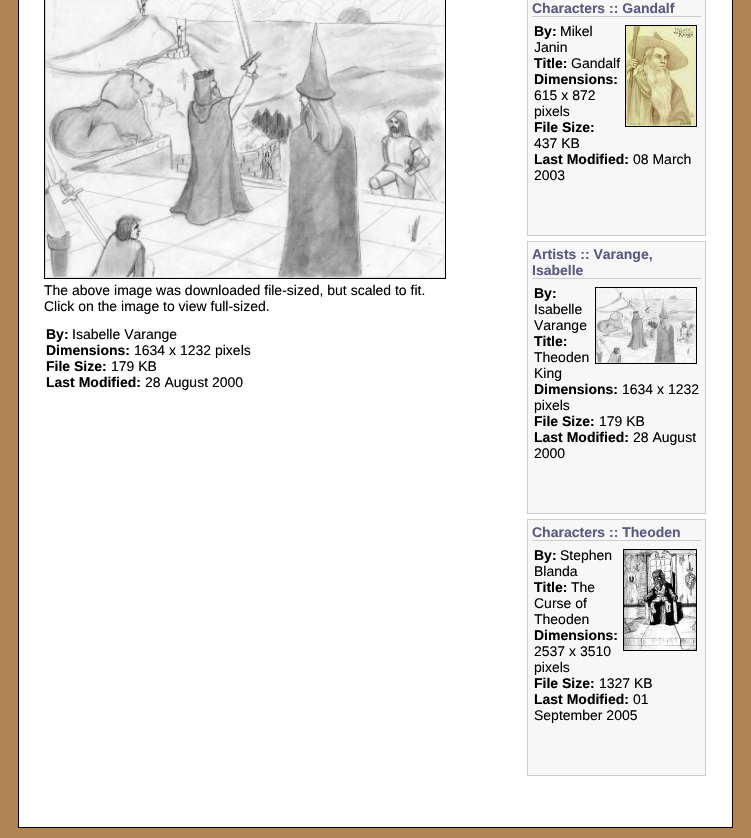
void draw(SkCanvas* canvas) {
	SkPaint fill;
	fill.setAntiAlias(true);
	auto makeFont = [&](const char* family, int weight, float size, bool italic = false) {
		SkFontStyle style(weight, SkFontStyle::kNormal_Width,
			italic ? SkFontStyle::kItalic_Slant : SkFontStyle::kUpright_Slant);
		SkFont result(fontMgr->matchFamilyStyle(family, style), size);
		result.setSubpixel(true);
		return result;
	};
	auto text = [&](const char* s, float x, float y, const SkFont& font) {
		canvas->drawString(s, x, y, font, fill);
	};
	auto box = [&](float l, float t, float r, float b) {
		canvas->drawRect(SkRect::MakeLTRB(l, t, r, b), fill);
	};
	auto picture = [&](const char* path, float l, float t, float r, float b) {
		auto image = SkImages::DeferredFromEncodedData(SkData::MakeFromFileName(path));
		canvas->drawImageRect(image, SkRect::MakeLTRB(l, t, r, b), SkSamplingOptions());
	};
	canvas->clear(0xFFB08553);
	fill.setColor(0xFFFFFFFF);
	canvas->drawRect(SkRect::MakeLTRB(18.5f, -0.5f, 732.5f, 827.5f), fill);
	fill.setStyle(SkPaint::kStroke_Style);
	fill.setStrokeWidth(1);
	fill.setColor(0xFF000000);
	canvas->drawRect(SkRect::MakeLTRB(18.5f, -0.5f, 732.5f, 827.5f), fill);
	canvas->drawRect(SkRect::MakeLTRB(44.5f, -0.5f, 445.5f, 278.5f), fill);
	picture("image0.png", 45, 0, 445, 278);
	fill.setStyle(SkPaint::kFill_Style);
	fill.setColor(0xFFF7F7F7);
	canvas->drawRect(SkRect::MakeLTRB(527.5f, -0.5f, 705.5f, 235.5f), fill);
	fill.setStyle(SkPaint::kStroke_Style);
	fill.setColor(0xFFCCCCCC);
	canvas->drawRect(SkRect::MakeLTRB(527.5f, -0.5f, 705.5f, 235.5f), fill);
	fill.setStyle(SkPaint::kFill_Style);
	box(532, 16, 701, 17);
	fill.setStyle(SkPaint::kStroke_Style);
	fill.setColor(0xFF000000);
	canvas->drawRect(SkRect::MakeLTRB(625.5f, 25.5f, 696.5f, 126.5f), fill);
	picture("image1.png", 626, 26, 696, 126);
	fill.setStyle(SkPaint::kFill_Style);
	fill.setColor(0xFFF7F7F7);
	canvas->drawRect(SkRect::MakeLTRB(527.5f, 241.5f, 705.5f, 513.5f), fill);
	fill.setStyle(SkPaint::kStroke_Style);
	fill.setColor(0xFFCCCCCC);
	canvas->drawRect(SkRect::MakeLTRB(527.5f, 241.5f, 705.5f, 513.5f), fill);
	fill.setStyle(SkPaint::kFill_Style);
	box(532, 278, 701, 279);
	fill.setStyle(SkPaint::kStroke_Style);
	fill.setColor(0xFF000000);
	canvas->drawRect(SkRect::MakeLTRB(595.5f, 287.5f, 696.5f, 363.5f), fill);
	picture("image2.png", 596, 288, 696, 363);
	fill.setStyle(SkPaint::kFill_Style);
	fill.setColor(0xFFF7F7F7);
	canvas->drawRect(SkRect::MakeLTRB(527.5f, 519.5f, 705.5f, 775.5f), fill);
	fill.setStyle(SkPaint::kStroke_Style);
	fill.setColor(0xFFCCCCCC);
	canvas->drawRect(SkRect::MakeLTRB(527.5f, 519.5f, 705.5f, 775.5f), fill);
	fill.setStyle(SkPaint::kFill_Style);
	box(532, 540, 701, 541);
	fill.setStyle(SkPaint::kStroke_Style);
	fill.setColor(0xFF000000);
	canvas->drawRect(SkRect::MakeLTRB(623.5f, 549.5f, 696.5f, 650.5f), fill);
	picture("image3.png", 624, 550, 696, 650);
	auto font1 = makeFont("Liberation Sans", 400, 14);
	fill.setStyle(SkPaint::kFill_Style);
	text("The above image was downloaded file-sized, but scaled to fit.", 44, 295, font1);
	text("Click on the image to view full-sized.", 44, 311, font1);
	auto font2 = makeFont("Liberation Sans", 700, 14);
	text("By:", 46, 339, font2);
	text("Isabelle Varange", 72, 339, font1);
	text("Dimensions:", 46, 355, font2);
	text("1634 x 1232 pixels", 134, 355, font1);
	text("File Size:", 46, 371, font2);
	text("179 KB", 111, 371, font1);
	text("Last Modified:", 46, 387, font2);
	text("28 August 2000", 145, 387, font1);
	fill.setColor(0xFF595983);
	text("Characters :: Gandalf", 532, 13, font2);
	fill.setColor(0xFF000000);
	text("By:", 534, 36, font2);
	text("Mikel", 560, 36, font1);
	text("Janin", 534, 52, font1);
	text("Title:", 534, 68, font2);
	text("Gandalf", 571, 68, font1);
	text("Dimensions:", 534, 84, font2);
	text("615 x 872", 534, 100, font1);
	text("pixels", 534, 116, font1);
	text("File Size:", 534, 132, font2);
	text("437 KB", 534, 148, font1);
	text("Last Modified:", 534, 164, font2);
	text("08 March", 633, 164, font1);
	text("2003", 534, 180, font1);
	fill.setColor(0xFF595983);
	text("Artists :: Varange,", 532, 259, font2);
	text("Isabelle", 532, 275, font2);
	fill.setColor(0xFF000000);
	text("By:", 534, 298, font2);
	text("Isabelle", 534, 314, font1);
	text("Varange", 534, 330, font1);
	text("Title:", 534, 346, font2);
	text("Theoden", 534, 362, font1);
	text("King", 534, 378, font1);
	text("Dimensions:", 534, 394, font2);
	text("1634 x 1232", 622, 394, font1);
	text("pixels", 534, 410, font1);
	text("File Size:", 534, 426, font2);
	text("179 KB", 599, 426, font1);
	text("Last Modified:", 534, 442, font2);
	text("28 August", 633, 442, font1);
	text("2000", 534, 458, font1);
	fill.setColor(0xFF595983);
	text("Characters :: Theoden", 532, 537, font2);
	fill.setColor(0xFF000000);
	text("By:", 534, 560, font2);
	text("Stephen", 560, 560, font1);
	text("Blanda", 534, 576, font1);
	text("Title:", 534, 592, font2);
	text("The", 571, 592, font1);
	text("Curse of", 534, 608, font1);
	text("Theoden", 534, 624, font1);
	text("Dimensions:", 534, 640, font2);
	text("2537 x 3510", 534, 656, font1);
	text("pixels", 534, 672, font1);
	text("File Size:", 534, 688, font2);
	text("1327 KB", 599, 688, font1);
	text("Last Modified:", 534, 704, font2);
	text("01", 633, 704, font1);
	text("September 2005", 534, 720, font1);
}
